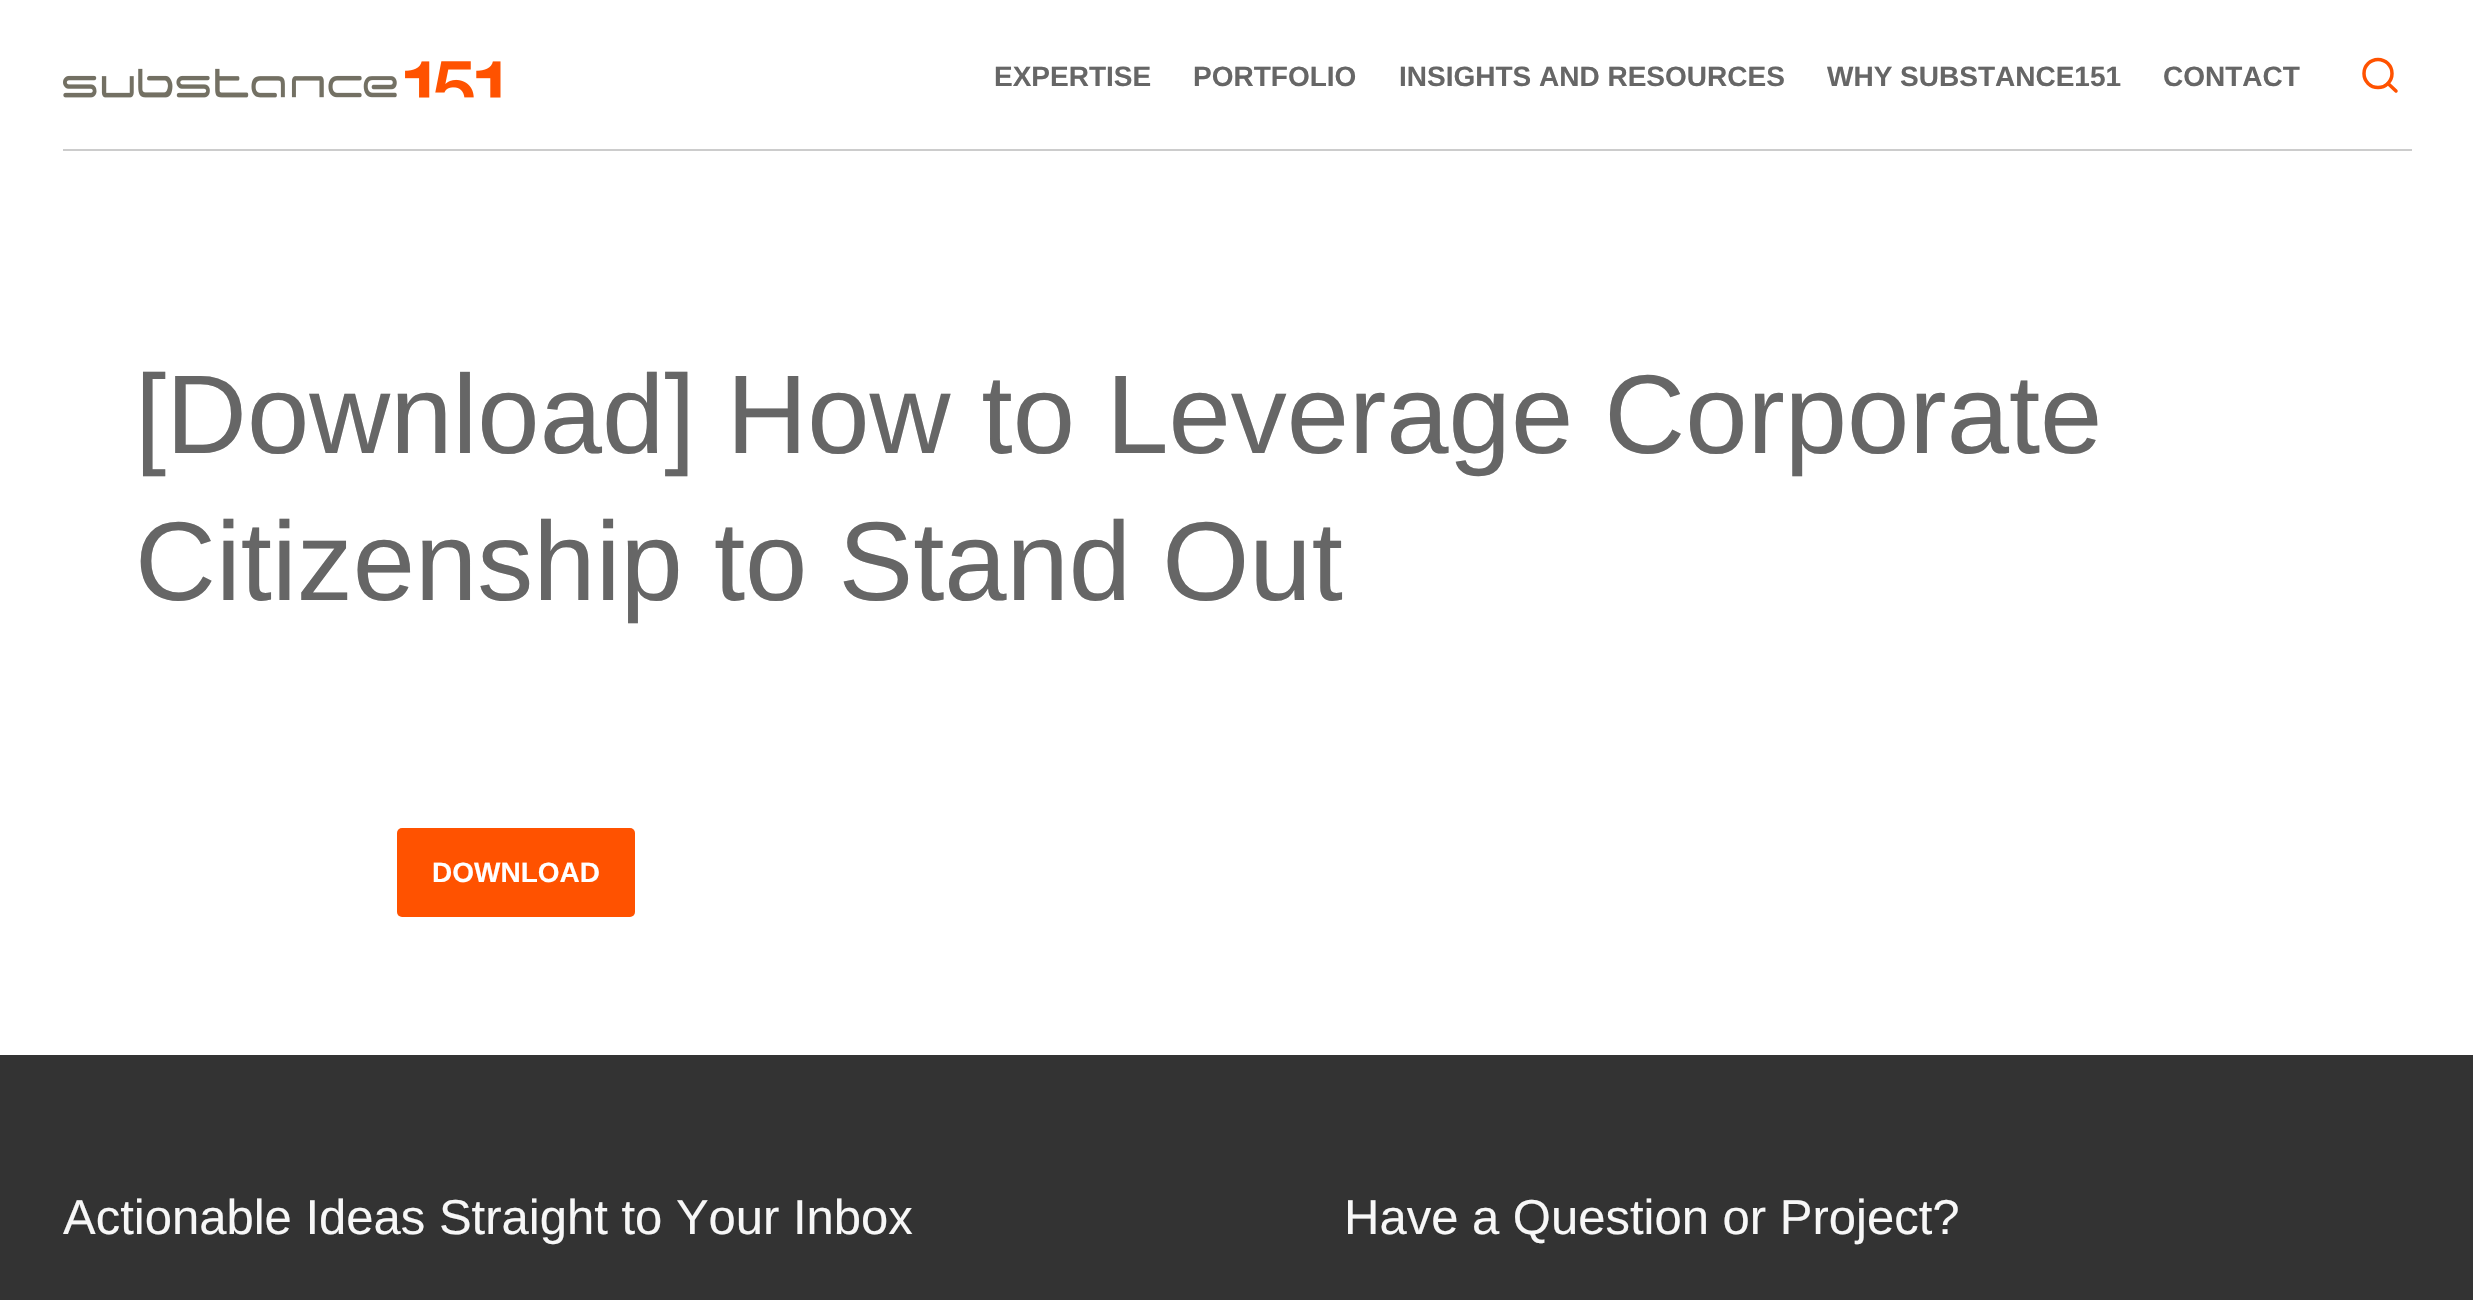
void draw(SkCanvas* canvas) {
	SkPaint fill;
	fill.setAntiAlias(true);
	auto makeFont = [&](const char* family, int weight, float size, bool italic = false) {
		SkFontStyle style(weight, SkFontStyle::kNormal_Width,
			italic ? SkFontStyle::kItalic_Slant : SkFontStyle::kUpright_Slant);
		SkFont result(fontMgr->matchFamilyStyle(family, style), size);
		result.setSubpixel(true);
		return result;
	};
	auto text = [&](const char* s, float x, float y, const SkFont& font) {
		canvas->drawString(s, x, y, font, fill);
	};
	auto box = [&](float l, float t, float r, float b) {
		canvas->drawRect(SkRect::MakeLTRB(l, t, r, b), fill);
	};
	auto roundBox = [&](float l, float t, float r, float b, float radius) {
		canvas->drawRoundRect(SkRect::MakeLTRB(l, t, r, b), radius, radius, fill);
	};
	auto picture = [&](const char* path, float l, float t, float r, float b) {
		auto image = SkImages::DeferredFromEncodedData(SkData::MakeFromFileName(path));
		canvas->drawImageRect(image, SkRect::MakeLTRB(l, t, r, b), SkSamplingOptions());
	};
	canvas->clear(0xFFFFFFFF);
	picture("image0.png", 63, 61, 501, 98);
	fill.setStyle(SkPaint::kStroke_Style);
	fill.setStrokeWidth(3.5f);
	fill.setColor(0xFFFF5200);
	canvas->drawCircle(2378, 73.5f, 14, fill);
	fill.setStrokeCap(SkPaint::kRound_Cap);
	fill.setStrokeJoin(SkPaint::kRound_Join);
	canvas->drawPath(SkPathBuilder().moveTo(2396, 91).lineTo(2388, 83.5f).detach(), fill);
	fill.setStyle(SkPaint::kFill_Style);
	fill.setColor(0xFFCCCCCC);
	box(63, 149, 2412, 151);
	fill.setColor(0xFFFF5200);
	roundBox(397, 828, 635, 917, 5);
	fill.setColor(0xFF333333);
	box(0, 1055, 2473, 1300);
	auto font1 = makeFont("Liberation Sans", 700, 28);
	fill.setColor(0xFF666666);
	text("EXPERTISE", 994, 86, font1);
	text("PORTFOLIO", 1193, 86, font1);
	text("INSIGHTS AND RESOURCES", 1399, 86, font1);
	text("WHY SUBSTANCE151", 1827, 86, font1);
	text("CONTACT", 2163, 86, font1);
	auto font2 = makeFont("Liberation Sans", 400, 112);
	text("[Download] How to Leverage Corporate", 135, 453, font2);
	text("Citizenship to Stand Out", 135, 600, font2);
	fill.setColor(0xFFFFFFFF);
	text("DOWNLOAD", 432, 882, font1);
	auto font3 = makeFont("Liberation Sans", 400, 49);
	fill.setColor(0xFFF7F7F7);
	text("Actionable Ideas Straight to Your Inbox", 63, 1234, font3);
	text("Have a Question or Project?", 1344, 1234, font3);
}
